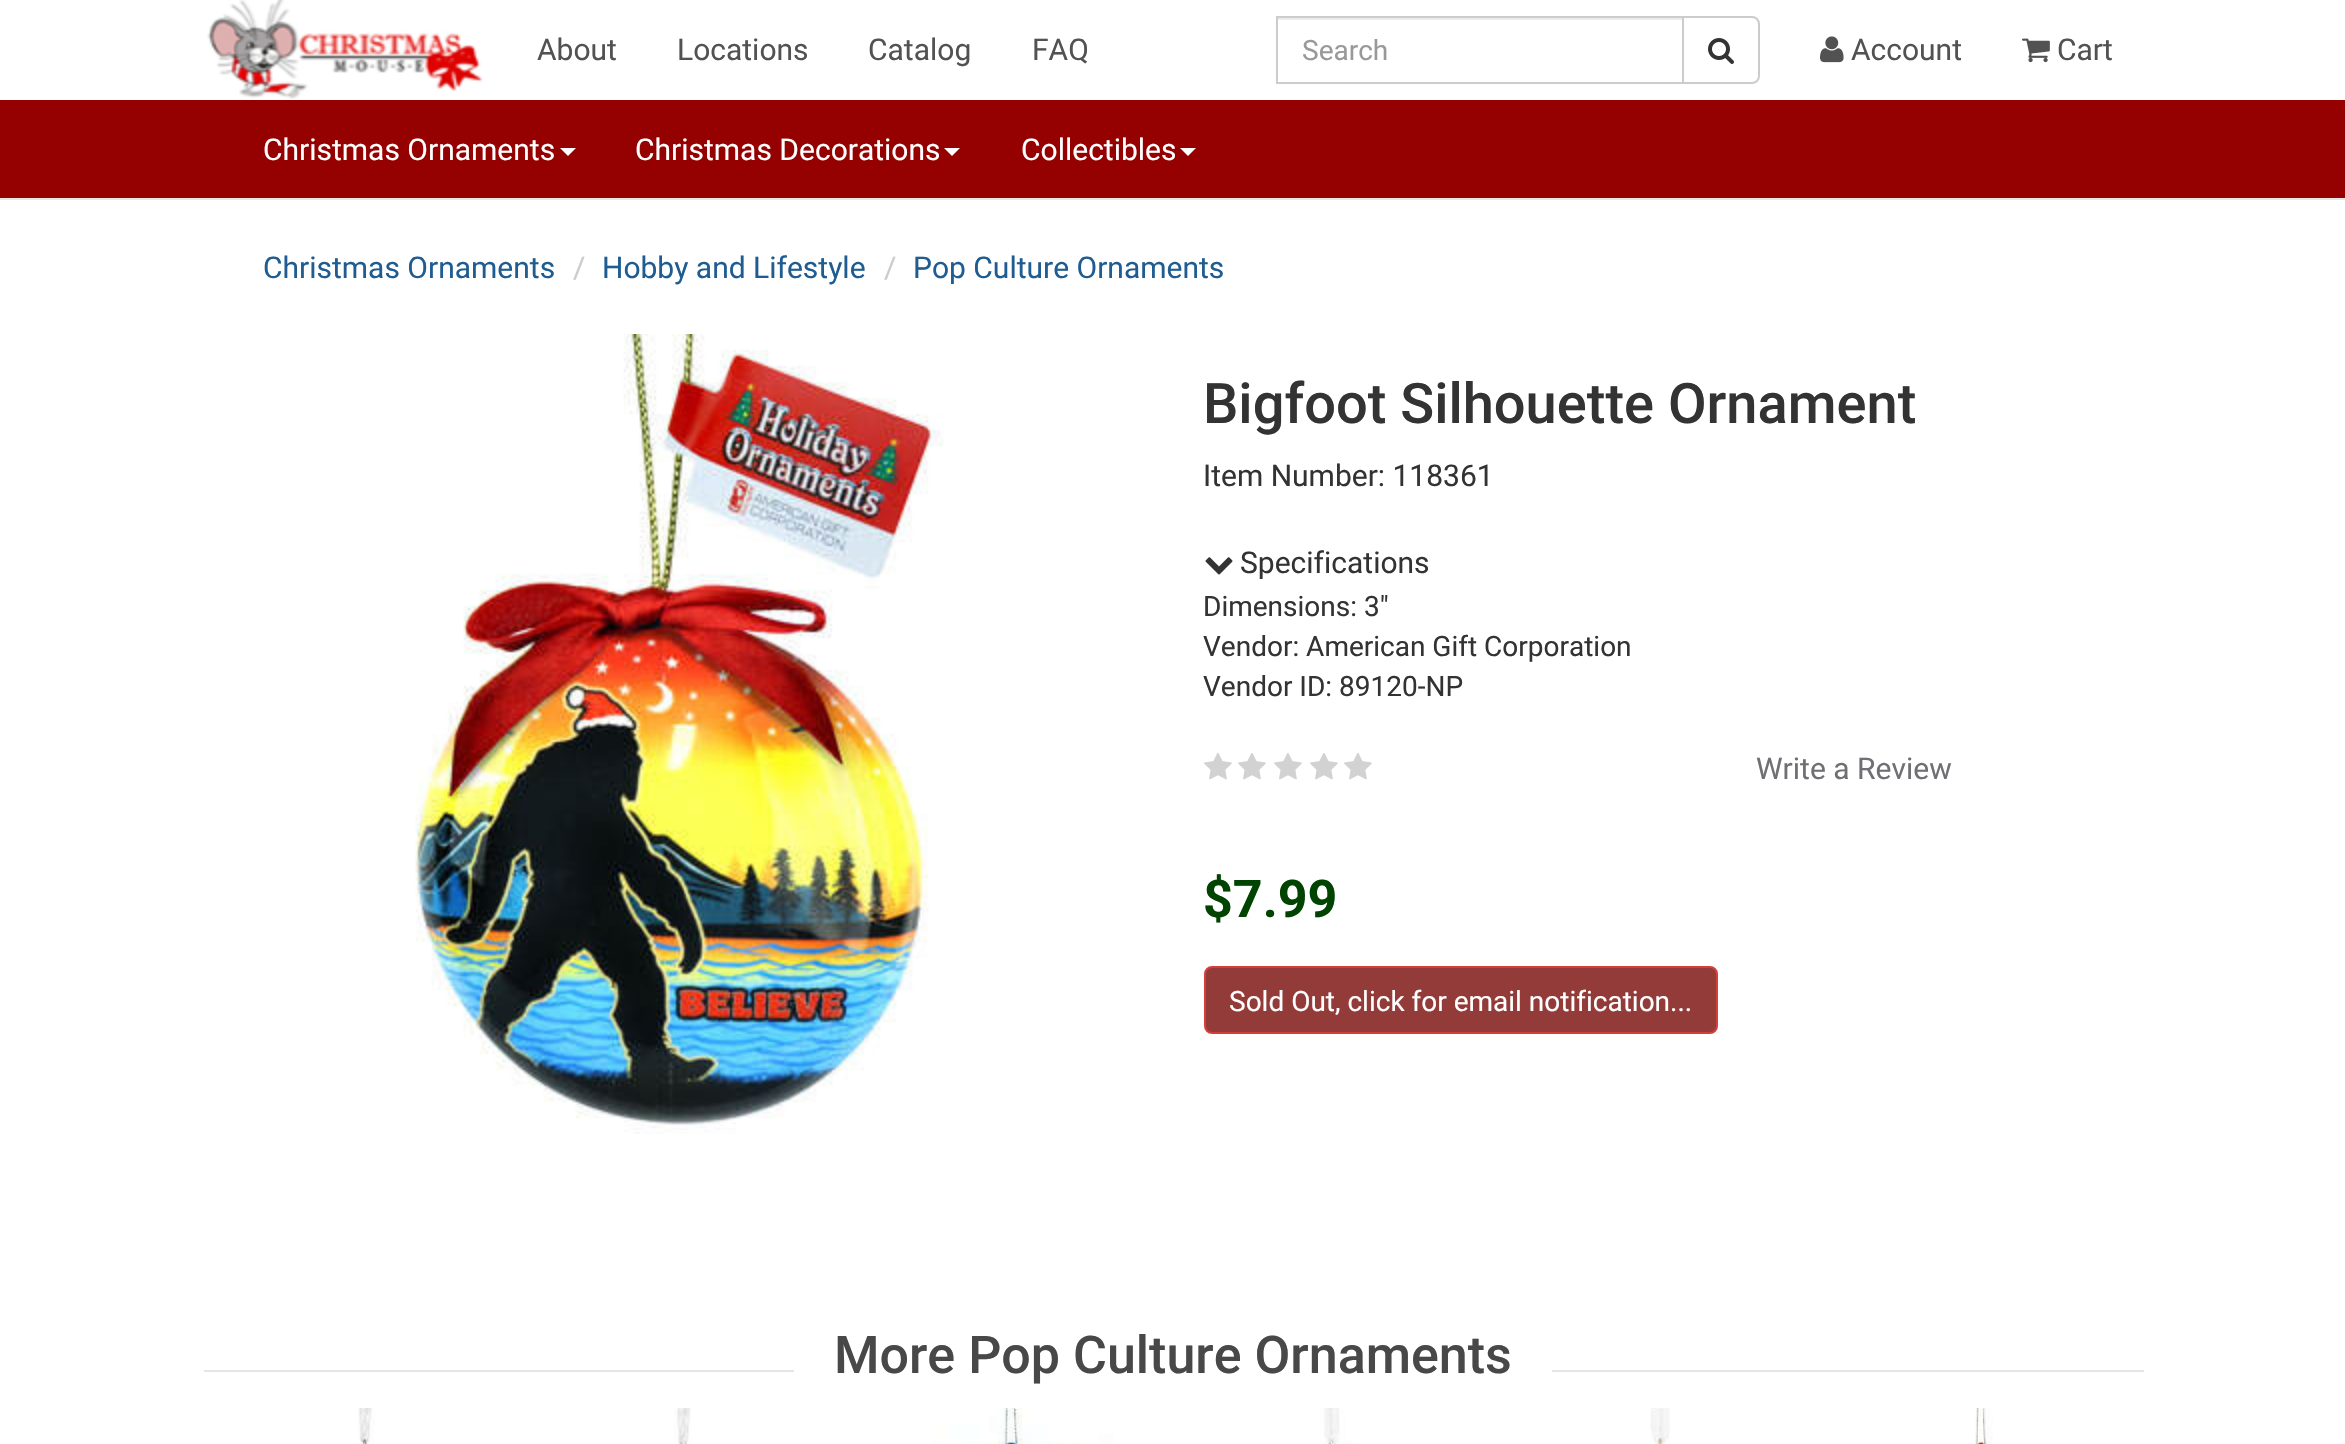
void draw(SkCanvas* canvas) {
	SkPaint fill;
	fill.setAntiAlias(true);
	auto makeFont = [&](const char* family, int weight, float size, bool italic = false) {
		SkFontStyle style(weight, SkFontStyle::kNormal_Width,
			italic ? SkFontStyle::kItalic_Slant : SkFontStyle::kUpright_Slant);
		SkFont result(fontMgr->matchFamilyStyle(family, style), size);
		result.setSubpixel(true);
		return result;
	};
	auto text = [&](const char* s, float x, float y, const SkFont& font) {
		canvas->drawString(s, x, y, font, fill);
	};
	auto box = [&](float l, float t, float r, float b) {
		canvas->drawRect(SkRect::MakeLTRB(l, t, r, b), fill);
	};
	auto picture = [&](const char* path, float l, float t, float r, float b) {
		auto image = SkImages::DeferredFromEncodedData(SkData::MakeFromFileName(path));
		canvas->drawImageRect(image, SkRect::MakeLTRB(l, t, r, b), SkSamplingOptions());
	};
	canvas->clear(0xFFFFFFFF);
	picture("image0.png", 207, 0, 483, 99);
	fill.setColor(0xFFECECEC);
	box(1278, 18, 1682, 20);
	fill.setStyle(SkPaint::kStroke_Style);
	fill.setStrokeWidth(2);
	fill.setColor(0xFFCCCCCC);
	canvas->drawRect(SkRect::MakeLTRB(1277, 17, 1683, 83), fill);
	fill.setStyle(SkPaint::kFill_Style);
	fill.setColor(0xFFFFFFFF);
	canvas->drawPath(SkPathBuilder().moveTo(1683, 17).lineTo(1752, 17).cubicTo(1756, 17, 1759, 20, 1759, 24).lineTo(1759, 76).cubicTo(1759, 80, 1756, 83, 1752, 83).lineTo(1683, 83).close().detach(), fill);
	fill.setStyle(SkPaint::kStroke_Style);
	fill.setColor(0xFFCCCCCC);
	canvas->drawPath(SkPathBuilder().moveTo(1683, 17).lineTo(1752, 17).cubicTo(1756, 17, 1759, 20, 1759, 24).lineTo(1759, 76).cubicTo(1759, 80, 1756, 83, 1752, 83).lineTo(1683, 83).close().detach(), fill);
	picture("image1.png", 1708, 38, 1734, 64);
	picture("image2.png", 1820, 36, 1844, 63);
	picture("image3.png", 2022, 38, 2050, 63);
	fill.setStyle(SkPaint::kFill_Style);
	fill.setColor(0xFF950000);
	box(0, 100, 2345, 198);
	fill.setColor(0xFFE7E7E7);
	box(0, 198, 2345, 200);
	fill.setColor(0xFFFFFFFF);
	canvas->drawPath(SkPathBuilder().moveTo(560, 148).lineTo(576, 148).lineTo(568, 156).close().detach(), fill);
	canvas->drawPath(SkPathBuilder().moveTo(944, 148).lineTo(960, 148).lineTo(952, 156).close().detach(), fill);
	canvas->drawPath(SkPathBuilder().moveTo(1180, 148).lineTo(1196, 148).lineTo(1188, 156).close().detach(), fill);
	picture("image4.png", 415, 334, 944, 1134);
	picture("image5.png", 1205, 557, 1233, 575);
	picture("image6.png", 1204, 753, 1232, 780);
	picture("image6.png", 1238, 753, 1266, 780);
	picture("image6.png", 1274, 753, 1302, 780);
	picture("image6.png", 1310, 753, 1338, 780);
	picture("image6.png", 1344, 753, 1372, 780);
	fill.setColor(0xFF933B39);
	canvas->drawRoundRect(SkRect::MakeLTRB(1205, 967, 1717, 1033), 7, 7, fill);
	fill.setStyle(SkPaint::kStroke_Style);
	fill.setColor(0xFFD43F3A);
	canvas->drawRoundRect(SkRect::MakeLTRB(1205, 967, 1717, 1033), 7, 7, fill);
	fill.setStyle(SkPaint::kFill_Style);
	fill.setColor(0xFFE5E5E5);
	box(204, 1370, 2144, 1372);
	fill.setColor(0xFFFFFFFF);
	box(794, 1370, 1552, 1372);
	picture("image7.png", 358, 1408, 375, 1444);
	picture("image8.png", 674, 1408, 691, 1444);
	picture("image9.png", 931, 1408, 1114, 1444);
	picture("image10.png", 1318, 1408, 1353, 1444);
	picture("image11.png", 1650, 1408, 1670, 1444);
	picture("image12.png", 1975, 1408, 1993, 1444);
	auto font1 = makeFont("Roboto", 400, 30);
	fill.setColor(0xFF525252);
	text("About", 537, 60, font1);
	text("Locations", 677, 60, font1);
	text("Catalog", 868, 60, font1);
	text("FAQ", 1032, 60, font1);
	auto font2 = makeFont("Roboto", 400, 28);
	fill.setColor(0xFF999999);
	text("Search", 1302, 60, font2);
	fill.setColor(0xFF525252);
	text("Account", 1851, 60, font1);
	text("Cart", 2057, 60, font1);
	fill.setColor(0xFFFFFFFF);
	text("Christmas Ornaments", 263, 160, font1);
	text("Christmas Decorations", 635, 160, font1);
	text("Collectibles", 1021, 160, font1);
	fill.setColor(0xFF1F5C91);
	text("Christmas Ornaments", 263, 278, font1);
	fill.setColor(0xFFCCCCCC);
	text("/", 573, 278, font1);
	fill.setColor(0xFF1F5C91);
	text("Hobby and Lifestyle", 602, 278, font1);
	fill.setColor(0xFFCCCCCC);
	text("/", 884, 278, font1);
	fill.setColor(0xFF1F5C91);
	text("Pop Culture Ornaments", 913, 278, font1);
	auto font3 = makeFont("Roboto", 500, 56);
	fill.setColor(0xFF333333);
	text("Bigfoot Silhouette Ornament", 1203, 423, font3);
	text("Item Number: 118361", 1203, 486, font1);
	text("Specifications", 1240, 573, font1);
	text("Dimensions: 3\"", 1203, 616, font2);
	text("Vendor: American Gift Corporation", 1203, 656, font2);
	text("Vendor ID: 89120-NP", 1203, 696, font2);
	fill.setColor(0xFF6F7073);
	text("Write a Review", 1756, 779, font1);
	auto font4 = makeFont("Roboto", 700, 52);
	fill.setColor(0xFF014401);
	text("$7.99", 1203, 917, font4);
	fill.setColor(0xFFFFFFFF);
	text("Sold Out, click for email notification...", 1229, 1011, font2);
	auto font5 = makeFont("Roboto", 500, 52);
	fill.setColor(0xFF484848);
	text("More Pop Culture Ornaments", 834, 1373, font5);
}
